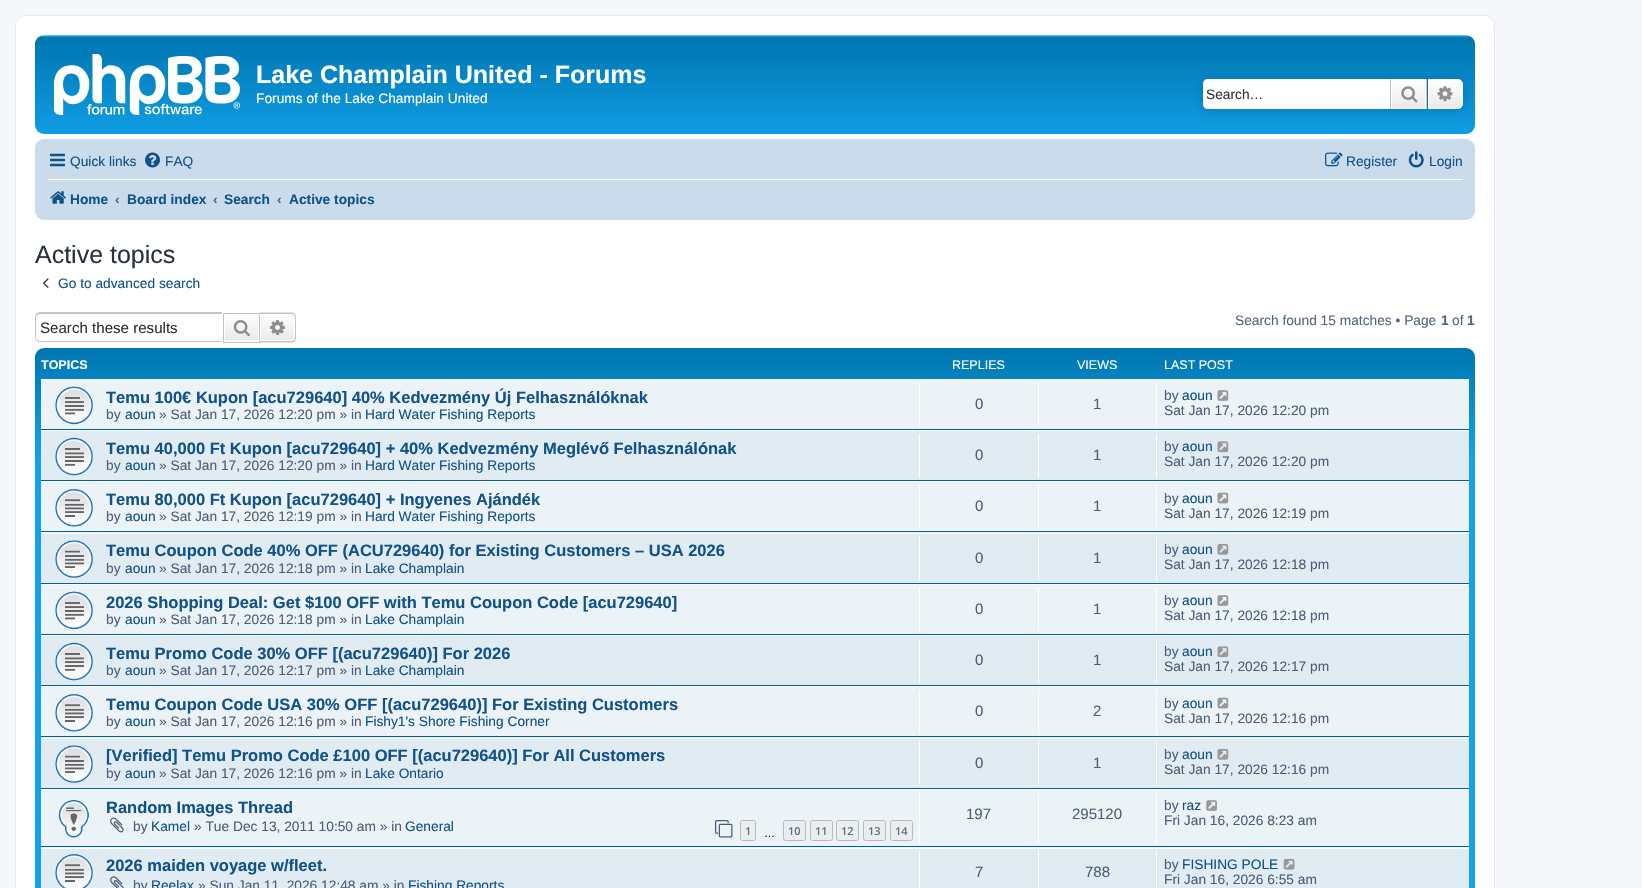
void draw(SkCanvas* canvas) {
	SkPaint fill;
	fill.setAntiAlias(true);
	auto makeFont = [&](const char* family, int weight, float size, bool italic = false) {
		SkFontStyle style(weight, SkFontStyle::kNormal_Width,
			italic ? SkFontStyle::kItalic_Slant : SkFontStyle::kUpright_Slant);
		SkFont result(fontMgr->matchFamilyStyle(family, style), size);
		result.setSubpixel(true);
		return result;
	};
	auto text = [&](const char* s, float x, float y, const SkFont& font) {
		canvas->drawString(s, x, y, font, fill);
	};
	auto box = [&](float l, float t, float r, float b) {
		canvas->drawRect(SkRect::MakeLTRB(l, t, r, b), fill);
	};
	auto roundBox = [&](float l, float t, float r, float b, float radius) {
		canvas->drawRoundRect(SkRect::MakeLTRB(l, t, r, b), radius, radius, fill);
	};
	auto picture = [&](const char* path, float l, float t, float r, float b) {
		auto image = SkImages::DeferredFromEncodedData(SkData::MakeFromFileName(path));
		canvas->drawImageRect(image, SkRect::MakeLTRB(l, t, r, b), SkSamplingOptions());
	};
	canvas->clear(0xFFF5F7FA);
	fill.setColor(0xFFFFFFFF);
	canvas->drawRoundRect(SkRect::MakeLTRB(15.5f, 15.5f, 1494.5f, 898.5f), 9.5f, 9.5f, fill);
	fill.setStyle(SkPaint::kStroke_Style);
	fill.setStrokeWidth(1);
	fill.setColor(0xFFE6E9ED);
	canvas->drawRoundRect(SkRect::MakeLTRB(15.5f, 15.5f, 1494.5f, 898.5f), 9.5f, 9.5f, fill);
	fill.setStyle(SkPaint::kFill_Style);
	{
		const SkColor colors[] = {0xFF6ACEFF, 0xFF0076B1, 0xFF12A3EB};
		const float stops[] = {0, 0.02f, 1};
		const SkPoint ends[] = {{755, 35}, {755, 150}};
		fill.setShader(SkGradientShader::MakeLinear(ends, colors, stops, 3, SkTileMode::kClamp));
		fill.setAlpha(255);
	}
	roundBox(35, 35, 1475, 134, 9);
	picture("image0.png", 54, 54, 240, 115);
	fill.setShader(nullptr);
	fill.setColor(0xFF0075B0);
	fill.setMaskFilter(SkMaskFilter::MakeBlur(kNormal_SkBlurStyle, 6));
	canvas->drawRoundRect(SkRect::MakeLTRB(1203, 79, 1463, 109), 5, 5, fill);
	fill.setMaskFilter(nullptr);
	fill.setColor(0xFFFFFFFF);
	canvas->drawPath(SkPathBuilder().moveTo(1208, 79).lineTo(1390, 79).lineTo(1390, 109).lineTo(1208, 109).cubicTo(1205, 109, 1203, 107, 1203, 104).lineTo(1203, 84).cubicTo(1203, 81, 1205, 79, 1208, 79).close().detach(), fill);
	{
		const SkColor colors[] = {0xFFFFFFFF, 0xFFE9E9E9};
		const float stops[] = {0, 1};
		const SkPoint ends[] = {{1409, 79}, {1409, 109}};
		fill.setShader(SkGradientShader::MakeLinear(ends, colors, stops, 2, SkTileMode::kClamp));
		fill.setAlpha(255);
	}
	box(1392, 80, 1425, 108);
	fill.setStyle(SkPaint::kStroke_Style);
	fill.setShader(nullptr);
	fill.setColor(0xFFFFFFFF);
	canvas->drawRect(SkRect::MakeLTRB(1391.5f, 79.5f, 1425.5f, 108.5f), fill);
	fill.setStyle(SkPaint::kFill_Style);
	fill.setColor(0xFFC7C3BF);
	box(1426, 79, 1427, 109);
	box(1390, 79, 1391, 109);
	picture("image1.png", 1401, 86, 1418, 103);
	{
		const SkColor colors[] = {0xFFFFFFFF, 0xFFE9E9E9};
		const float stops[] = {0, 1};
		const SkPoint ends[] = {{1445, 79}, {1445, 109}};
		fill.setShader(SkGradientShader::MakeLinear(ends, colors, stops, 2, SkTileMode::kClamp));
		fill.setAlpha(255);
	}
	canvas->drawPath(SkPathBuilder().moveTo(1428.5f, 79.5f).lineTo(1458, 79.5f).cubicTo(1460.5f, 79.5f, 1462.5f, 81.5f, 1462.5f, 84).lineTo(1462.5f, 104).cubicTo(1462.5f, 106.5f, 1460.5f, 108.5f, 1458, 108.5f).lineTo(1428.5f, 108.5f).close().detach(), fill);
	fill.setStyle(SkPaint::kStroke_Style);
	fill.setShader(nullptr);
	fill.setColor(0xFFFFFFFF);
	canvas->drawPath(SkPathBuilder().moveTo(1428.5f, 79.5f).lineTo(1458, 79.5f).cubicTo(1460.5f, 79.5f, 1462.5f, 81.5f, 1462.5f, 84).lineTo(1462.5f, 104).cubicTo(1462.5f, 106.5f, 1460.5f, 108.5f, 1458, 108.5f).lineTo(1428.5f, 108.5f).close().detach(), fill);
	picture("image2.png", 1437, 86, 1453, 102);
	fill.setStyle(SkPaint::kFill_Style);
	fill.setColor(0xFFCADCEB);
	roundBox(35, 139, 1475, 220, 9);
	picture("image3.png", 50, 153, 65, 167);
	picture("image4.png", 145, 152, 160, 168);
	picture("image5.png", 1325, 152, 1343, 167);
	picture("image6.png", 1408, 151, 1424, 168);
	fill.setColor(0xFFFFFFFF);
	box(48, 179, 1463, 180);
	picture("image7.png", 50, 191, 66, 204);
	picture("image8.png", 43, 278, 49, 288);
	fill.setColor(0xFFC7C3BF);
	canvas->drawPath(SkPathBuilder(SkPathFillType::kEvenOdd).moveTo(40, 312).lineTo(222, 312).lineTo(222, 342).lineTo(40, 342).cubicTo(37, 342, 35, 340, 35, 338).lineTo(35, 318).cubicTo(35, 315, 37, 312, 40, 312).close().moveTo(40, 314).lineTo(222, 314).lineTo(222, 341).lineTo(40, 341).cubicTo(38, 341, 36, 340, 36, 338).lineTo(36, 318).cubicTo(36, 315, 38, 314, 40, 314).close().detach(), fill);
	{
		const SkColor colors[] = {0xFFFFFFFF, 0xFFE9E9E9};
		const float stops[] = {0, 1};
		const SkPoint ends[] = {{241, 314}, {241, 341}};
		fill.setShader(SkGradientShader::MakeLinear(ends, colors, stops, 2, SkTileMode::kClamp));
		fill.setAlpha(255);
	}
	box(225, 317, 258, 340);
	fill.setStyle(SkPaint::kStroke_Style);
	fill.setShader(nullptr);
	fill.setColor(0xFFC7C3BF);
	canvas->drawRect(SkRect::MakeLTRB(223.5f, 313.5f, 259.5f, 342.5f), fill);
	picture("image9.png", 233, 320, 250, 337);
	fill.setStyle(SkPaint::kFill_Style);
	{
		const SkColor colors[] = {0xFFFFFFFF, 0xFFE9E9E9};
		const float stops[] = {0, 1};
		const SkPoint ends[] = {{278, 314}, {278, 341}};
		fill.setShader(SkGradientShader::MakeLinear(ends, colors, stops, 2, SkTileMode::kClamp));
		fill.setAlpha(255);
	}
	canvas->drawPath(SkPathBuilder().moveTo(260.5f, 314.5f).lineTo(291, 314.5f).cubicTo(293, 314.5f, 294.5f, 316, 294.5f, 318).lineTo(294.5f, 337).cubicTo(294.5f, 339, 293, 340.5f, 291, 340.5f).lineTo(260.5f, 340.5f).close().detach(), fill);
	fill.setStyle(SkPaint::kStroke_Style);
	fill.setShader(nullptr);
	fill.setColor(0xFFFFFFFF);
	canvas->drawPath(SkPathBuilder().moveTo(260.5f, 314.5f).lineTo(291, 314.5f).cubicTo(293, 314.5f, 294.5f, 316, 294.5f, 318).lineTo(294.5f, 337).cubicTo(294.5f, 339, 293, 340.5f, 291, 340.5f).lineTo(260.5f, 340.5f).close().detach(), fill);
	fill.setStyle(SkPaint::kFill_Style);
	fill.setColor(0xFFC7C3BF);
	canvas->drawPath(SkPathBuilder(SkPathFillType::kEvenOdd).moveTo(260, 312.5f).lineTo(291, 312.5f).cubicTo(294, 312.5f, 296, 314.5f, 296, 317.5f).lineTo(296, 337.5f).cubicTo(296, 340.5f, 294, 342.5f, 291, 342.5f).lineTo(260, 342.5f).close().moveTo(260, 314).lineTo(291, 314).cubicTo(293.5f, 314, 295, 315.5f, 295, 317.5f).lineTo(295, 337.5f).cubicTo(295, 339.5f, 293.5f, 341, 291, 341).lineTo(260, 341).close().detach(), fill);
	picture("image10.png", 270, 320, 285, 335);
	{
		const SkColor colors[] = {0xFF6ACEFF, 0xFF0076B1, 0xFF12A3EB, 0xFF12A3EB};
		const float stops[] = {0, 0, 0.14f, 1};
		const SkPoint ends[] = {{755, 347}, {755, 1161}};
		fill.setShader(SkGradientShader::MakeLinear(ends, colors, stops, 4, SkTileMode::kClamp));
		fill.setAlpha(255);
	}
	roundBox(35, 348, 1475, 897, 9);
	fill.setShader(nullptr);
	fill.setColor(0xFFECF3F7);
	box(41, 380, 1469, 429);
	fill.setColor(0xFFFFFFFF);
	box(41, 379, 1469, 380);
	fill.setColor(0xFF00608F);
	box(41, 429, 1469, 430);
	picture("image11.png", 55, 386, 93, 425);
	fill.setColor(0xFFFFFFFF);
	box(919, 383, 920, 426);
	box(1038, 383, 1039, 426);
	box(1156, 383, 1157, 426);
	picture("image12.png", 1217, 390, 1229, 401);
	fill.setColor(0xFFE1EBF2);
	box(41, 431, 1469, 480);
	fill.setColor(0xFFFFFFFF);
	box(41, 430, 1469, 431);
	fill.setColor(0xFF00608F);
	box(41, 480, 1469, 481);
	picture("image13.png", 55, 437, 93, 476);
	fill.setColor(0xFFFFFFFF);
	box(919, 434, 920, 478);
	box(1038, 434, 1039, 478);
	box(1156, 434, 1157, 478);
	picture("image14.png", 1217, 441, 1229, 453);
	fill.setColor(0xFFECF3F7);
	box(41, 482, 1469, 533);
	fill.setColor(0xFFFFFFFF);
	box(41, 481, 1469, 482);
	fill.setColor(0xFF00608F);
	box(41, 531, 1469, 532);
	picture("image15.png", 55, 488, 93, 527);
	fill.setColor(0xFFFFFFFF);
	box(919, 485, 920, 529);
	box(1038, 485, 1039, 529);
	box(1156, 485, 1157, 529);
	picture("image16.png", 1217, 492, 1229, 504);
	fill.setColor(0xFFE1EBF2);
	box(41, 534, 1469, 583);
	fill.setColor(0xFFFFFFFF);
	box(41, 533, 1469, 534);
	fill.setColor(0xFF00608F);
	box(41, 583, 1469, 584);
	picture("image17.png", 55, 540, 93, 578);
	fill.setColor(0xFFFFFFFF);
	box(919, 536, 920, 580);
	box(1038, 536, 1039, 580);
	box(1156, 536, 1157, 580);
	picture("image18.png", 1217, 543, 1229, 555);
	fill.setColor(0xFFECF3F7);
	box(41, 585, 1469, 634);
	fill.setColor(0xFFFFFFFF);
	box(41, 584, 1469, 585);
	fill.setColor(0xFF00608F);
	box(41, 634, 1469, 635);
	picture("image11.png", 55, 591, 93, 630);
	fill.setColor(0xFFFFFFFF);
	box(919, 588, 920, 631);
	box(1038, 588, 1039, 631);
	box(1156, 588, 1157, 631);
	picture("image12.png", 1217, 595, 1229, 606);
	fill.setColor(0xFFE1EBF2);
	box(41, 636, 1469, 685);
	fill.setColor(0xFFFFFFFF);
	box(41, 635, 1469, 636);
	fill.setColor(0xFF00608F);
	box(41, 685, 1469, 686);
	picture("image13.png", 55, 642, 93, 681);
	fill.setColor(0xFFFFFFFF);
	box(919, 639, 920, 683);
	box(1038, 639, 1039, 683);
	box(1156, 639, 1157, 683);
	picture("image14.png", 1217, 646, 1229, 658);
	fill.setColor(0xFFECF3F7);
	box(41, 687, 1469, 738);
	fill.setColor(0xFFFFFFFF);
	box(41, 686, 1469, 687);
	fill.setColor(0xFF00608F);
	box(41, 736, 1469, 737);
	picture("image15.png", 55, 693, 93, 732);
	fill.setColor(0xFFFFFFFF);
	box(919, 690, 920, 734);
	box(1038, 690, 1039, 734);
	box(1156, 690, 1157, 734);
	picture("image16.png", 1217, 697, 1229, 709);
	fill.setColor(0xFFE1EBF2);
	box(41, 739, 1469, 788);
	fill.setColor(0xFFFFFFFF);
	box(41, 738, 1469, 739);
	fill.setColor(0xFF00608F);
	box(41, 788, 1469, 789);
	picture("image17.png", 55, 745, 93, 783);
	fill.setColor(0xFFFFFFFF);
	box(919, 741, 920, 785);
	box(1038, 741, 1039, 785);
	box(1156, 741, 1157, 785);
	picture("image18.png", 1217, 748, 1229, 760);
	fill.setColor(0xFFECF3F7);
	box(41, 790, 1469, 848);
	fill.setColor(0xFFFFFFFF);
	box(41, 789, 1469, 790);
	fill.setColor(0xFF00608F);
	box(41, 846, 1469, 847);
	picture("image19.png", 58, 800, 89, 838);
	picture("image20.png", 110, 817, 124, 833);
	picture("image21.png", 715, 820, 733, 838);
	fill.setColor(0xFFECEDEE);
	canvas->drawRoundRect(SkRect::MakeLTRB(740.5f, 820.5f, 755.5f, 840.5f), 2, 2, fill);
	fill.setStyle(SkPaint::kStroke_Style);
	fill.setColor(0xFFB4BAC0);
	canvas->drawRoundRect(SkRect::MakeLTRB(740.5f, 820.5f, 755.5f, 840.5f), 2, 2, fill);
	fill.setStyle(SkPaint::kFill_Style);
	fill.setColor(0xFFECEDEE);
	canvas->drawRoundRect(SkRect::MakeLTRB(783.5f, 820.5f, 805.5f, 840.5f), 2, 2, fill);
	fill.setStyle(SkPaint::kStroke_Style);
	fill.setColor(0xFFB4BAC0);
	canvas->drawRoundRect(SkRect::MakeLTRB(783.5f, 820.5f, 805.5f, 840.5f), 2, 2, fill);
	fill.setStyle(SkPaint::kFill_Style);
	fill.setColor(0xFFECEDEE);
	canvas->drawRoundRect(SkRect::MakeLTRB(810.5f, 820.5f, 832.5f, 840.5f), 2, 2, fill);
	fill.setStyle(SkPaint::kStroke_Style);
	fill.setColor(0xFFB4BAC0);
	canvas->drawRoundRect(SkRect::MakeLTRB(810.5f, 820.5f, 832.5f, 840.5f), 2, 2, fill);
	fill.setStyle(SkPaint::kFill_Style);
	fill.setColor(0xFFECEDEE);
	canvas->drawRoundRect(SkRect::MakeLTRB(836.5f, 820.5f, 858.5f, 840.5f), 2, 2, fill);
	fill.setStyle(SkPaint::kStroke_Style);
	fill.setColor(0xFFB4BAC0);
	canvas->drawRoundRect(SkRect::MakeLTRB(836.5f, 820.5f, 858.5f, 840.5f), 2, 2, fill);
	fill.setStyle(SkPaint::kFill_Style);
	fill.setColor(0xFFECEDEE);
	canvas->drawRoundRect(SkRect::MakeLTRB(863.5f, 820.5f, 885.5f, 840.5f), 2, 2, fill);
	fill.setStyle(SkPaint::kStroke_Style);
	fill.setColor(0xFFB4BAC0);
	canvas->drawRoundRect(SkRect::MakeLTRB(863.5f, 820.5f, 885.5f, 840.5f), 2, 2, fill);
	fill.setStyle(SkPaint::kFill_Style);
	fill.setColor(0xFFECEDEE);
	canvas->drawRoundRect(SkRect::MakeLTRB(890.5f, 820.5f, 912.5f, 840.5f), 2, 2, fill);
	fill.setStyle(SkPaint::kStroke_Style);
	fill.setColor(0xFFB4BAC0);
	canvas->drawRoundRect(SkRect::MakeLTRB(890.5f, 820.5f, 912.5f, 840.5f), 2, 2, fill);
	fill.setStyle(SkPaint::kFill_Style);
	fill.setColor(0xFFFFFFFF);
	box(919, 793, 920, 844);
	box(1038, 793, 1039, 844);
	box(1156, 793, 1157, 844);
	picture("image22.png", 1206, 800, 1217, 811);
	fill.setColor(0xFFE1EBF2);
	box(41, 849, 1469, 888);
	fill.setColor(0xFFFFFFFF);
	box(41, 848, 1469, 849);
	picture("image23.png", 55, 853, 93, 888);
	picture("image24.png", 110, 876, 124, 888);
	box(919, 851, 920, 888);
	box(1038, 851, 1039, 888);
	box(1156, 851, 1157, 888);
	picture("image25.png", 1283, 858, 1295, 870);
	auto font1 = makeFont("Liberation Sans", 700, 25);
	text("Lake Champlain United - Forums", 256, 83, font1);
	auto font2 = makeFont("Liberation Sans", 400, 13.75f);
	text("Forums of the Lake Champlain United", 256, 103, font2);
	fill.setColor(0xFF333333);
	text("Search…", 1206, 99, font2);
	fill.setColor(0xFF105289);
	text("Quick links", 70, 166, font2);
	text("FAQ", 165, 166, font2);
	text("Register", 1346, 166, font2);
	text("Login", 1429, 166, font2);
	auto font3 = makeFont("Liberation Sans", 700, 13.75f);
	text("Home", 70, 204, font3);
	fill.setColor(0xFF536482);
	text("‹", 115, 204, font3);
	fill.setColor(0xFF105289);
	text("Board index", 127, 204, font3);
	fill.setColor(0xFF536482);
	text("‹", 213, 204, font3);
	fill.setColor(0xFF105289);
	text("Search", 224, 204, font3);
	fill.setColor(0xFF536482);
	text("‹", 277, 204, font3);
	fill.setColor(0xFF105289);
	text("Active topics", 289, 204, font3);
	auto font4 = makeFont("Liberation Sans", 400, 25);
	fill.setColor(0xFF28313F);
	text("Active topics", 35, 263, font4);
	fill.setColor(0xFF105289);
	text("Go to advanced search", 58, 288, font2);
	auto font5 = makeFont("Liberation Sans", 400, 15.1f);
	fill.setColor(0xFF333333);
	text("Search these results", 40, 333, font5);
	fill.setColor(0xFF536482);
	text("Search found 15 matches • Page", 1235, 325, font2);
	text("1", 1441, 325, font3);
	text("of", 1452, 325, font2);
	text("1", 1467, 325, font3);
	auto font6 = makeFont("Liberation Sans", 700, 12.5f);
	fill.setColor(0xFFFFFFFF);
	text("TOPICS", 41, 369, font6);
	auto font7 = makeFont("Liberation Sans", 400, 12.5f);
	text("REPLIES", 952, 369, font7);
	text("VIEWS", 1077, 369, font7);
	text("LAST POST", 1164, 369, font7);
	auto font8 = makeFont("Liberation Sans", 700, 16.5f);
	fill.setColor(0xFF105289);
	text("Temu 100€ Kupon [acu729640] 40% Kedvezmény Új Felhasználóknak", 106, 403, font8);
	fill.setColor(0xFF4C5D77);
	text("by", 106, 419, font2);
	fill.setColor(0xFF105289);
	text("aoun", 125, 419, font2);
	fill.setColor(0xFF4C5D77);
	text("» Sat Jan 17, 2026 12:20 pm » in", 159, 419, font2);
	fill.setColor(0xFF105289);
	text("Hard Water Fishing Reports", 365, 419, font2);
	auto font9 = makeFont("Liberation Sans", 400, 15);
	fill.setColor(0xFF4C5D77);
	text("0", 975, 409, font9);
	text("1", 1093, 409, font9);
	text("by", 1164, 400, font2);
	fill.setColor(0xFF105289);
	text("aoun", 1182, 400, font2);
	fill.setColor(0xFF4C5D77);
	text("Sat Jan 17, 2026 12:20 pm", 1164, 415, font2);
	fill.setColor(0xFF105289);
	text("Temu 40,000 Ft Kupon [acu729640] + 40% Kedvezmény Meglévő Felhasználónak", 106, 454, font8);
	fill.setColor(0xFF4C5D77);
	text("by", 106, 470, font2);
	fill.setColor(0xFF105289);
	text("aoun", 125, 470, font2);
	fill.setColor(0xFF4C5D77);
	text("» Sat Jan 17, 2026 12:20 pm » in", 159, 470, font2);
	fill.setColor(0xFF105289);
	text("Hard Water Fishing Reports", 365, 470, font2);
	fill.setColor(0xFF4C5D77);
	text("0", 975, 460, font9);
	text("1", 1093, 460, font9);
	text("by", 1164, 451, font2);
	fill.setColor(0xFF105289);
	text("aoun", 1182, 451, font2);
	fill.setColor(0xFF4C5D77);
	text("Sat Jan 17, 2026 12:20 pm", 1164, 466, font2);
	fill.setColor(0xFF105289);
	text("Temu 80,000 Ft Kupon [acu729640] + Ingyenes Ajándék", 106, 505, font8);
	fill.setColor(0xFF4C5D77);
	text("by", 106, 521, font2);
	fill.setColor(0xFF105289);
	text("aoun", 125, 521, font2);
	fill.setColor(0xFF4C5D77);
	text("» Sat Jan 17, 2026 12:19 pm » in", 159, 521, font2);
	fill.setColor(0xFF105289);
	text("Hard Water Fishing Reports", 365, 521, font2);
	fill.setColor(0xFF4C5D77);
	text("0", 975, 511, font9);
	text("1", 1093, 511, font9);
	text("by", 1164, 503, font2);
	fill.setColor(0xFF105289);
	text("aoun", 1182, 503, font2);
	fill.setColor(0xFF4C5D77);
	text("Sat Jan 17, 2026 12:19 pm", 1164, 518, font2);
	fill.setColor(0xFF105289);
	text("Temu Coupon Code 40% OFF (ACU729640) for Existing Customers – USA 2026", 106, 556, font8);
	fill.setColor(0xFF4C5D77);
	text("by", 106, 573, font2);
	fill.setColor(0xFF105289);
	text("aoun", 125, 573, font2);
	fill.setColor(0xFF4C5D77);
	text("» Sat Jan 17, 2026 12:18 pm » in", 159, 573, font2);
	fill.setColor(0xFF105289);
	text("Lake Champlain", 365, 573, font2);
	fill.setColor(0xFF4C5D77);
	text("0", 975, 563, font9);
	text("1", 1093, 563, font9);
	text("by", 1164, 554, font2);
	fill.setColor(0xFF105289);
	text("aoun", 1182, 554, font2);
	fill.setColor(0xFF4C5D77);
	text("Sat Jan 17, 2026 12:18 pm", 1164, 569, font2);
	fill.setColor(0xFF105289);
	text("2026 Shopping Deal: Get $100 OFF with Temu Coupon Code [acu729640]", 106, 608, font8);
	fill.setColor(0xFF4C5D77);
	text("by", 106, 624, font2);
	fill.setColor(0xFF105289);
	text("aoun", 125, 624, font2);
	fill.setColor(0xFF4C5D77);
	text("» Sat Jan 17, 2026 12:18 pm » in", 159, 624, font2);
	fill.setColor(0xFF105289);
	text("Lake Champlain", 365, 624, font2);
	fill.setColor(0xFF4C5D77);
	text("0", 975, 614, font9);
	text("1", 1093, 614, font9);
	text("by", 1164, 605, font2);
	fill.setColor(0xFF105289);
	text("aoun", 1182, 605, font2);
	fill.setColor(0xFF4C5D77);
	text("Sat Jan 17, 2026 12:18 pm", 1164, 620, font2);
	fill.setColor(0xFF105289);
	text("Temu Promo Code 30% OFF [(acu729640)] For 2026", 106, 659, font8);
	fill.setColor(0xFF4C5D77);
	text("by", 106, 675, font2);
	fill.setColor(0xFF105289);
	text("aoun", 125, 675, font2);
	fill.setColor(0xFF4C5D77);
	text("» Sat Jan 17, 2026 12:17 pm » in", 159, 675, font2);
	fill.setColor(0xFF105289);
	text("Lake Champlain", 365, 675, font2);
	fill.setColor(0xFF4C5D77);
	text("0", 975, 665, font9);
	text("1", 1093, 665, font9);
	text("by", 1164, 656, font2);
	fill.setColor(0xFF105289);
	text("aoun", 1182, 656, font2);
	fill.setColor(0xFF4C5D77);
	text("Sat Jan 17, 2026 12:17 pm", 1164, 671, font2);
	fill.setColor(0xFF105289);
	text("Temu Coupon Code USA 30% OFF [(acu729640)] For Existing Customers", 106, 710, font8);
	fill.setColor(0xFF4C5D77);
	text("by", 106, 726, font2);
	fill.setColor(0xFF105289);
	text("aoun", 125, 726, font2);
	fill.setColor(0xFF4C5D77);
	text("» Sat Jan 17, 2026 12:16 pm » in", 159, 726, font2);
	fill.setColor(0xFF105289);
	text("Fishy1's Shore Fishing Corner", 365, 726, font2);
	fill.setColor(0xFF4C5D77);
	text("0", 975, 716, font9);
	text("2", 1093, 716, font9);
	text("by", 1164, 708, font2);
	fill.setColor(0xFF105289);
	text("aoun", 1182, 708, font2);
	fill.setColor(0xFF4C5D77);
	text("Sat Jan 17, 2026 12:16 pm", 1164, 723, font2);
	fill.setColor(0xFF105289);
	text("[Verified] Temu Promo Code £100 OFF [(acu729640)] For All Customers", 106, 761, font8);
	fill.setColor(0xFF4C5D77);
	text("by", 106, 778, font2);
	fill.setColor(0xFF105289);
	text("aoun", 125, 778, font2);
	fill.setColor(0xFF4C5D77);
	text("» Sat Jan 17, 2026 12:16 pm » in", 159, 778, font2);
	fill.setColor(0xFF105289);
	text("Lake Ontario", 365, 778, font2);
	fill.setColor(0xFF4C5D77);
	text("0", 975, 768, font9);
	text("1", 1093, 768, font9);
	text("by", 1164, 759, font2);
	fill.setColor(0xFF105289);
	text("aoun", 1182, 759, font2);
	fill.setColor(0xFF4C5D77);
	text("Sat Jan 17, 2026 12:16 pm", 1164, 774, font2);
	fill.setColor(0xFF105289);
	text("Random Images Thread", 106, 813, font8);
	fill.setColor(0xFF4C5D77);
	text("by", 133, 831, font2);
	fill.setColor(0xFF105289);
	text("Kamel", 151, 831, font2);
	fill.setColor(0xFF4C5D77);
	text("» Tue Dec 13, 2011 10:50 am » in", 194, 831, font2);
	fill.setColor(0xFF105289);
	text("General", 405, 831, font2);
	auto font10 = makeFont("Open Sans", 600, 11);
	fill.setColor(0xFF5C758C);
	text("1", 745, 835, font10);
	text("10", 788, 835, font10);
	text("11", 815, 835, font10);
	text("12", 841, 835, font10);
	text("13", 868, 835, font10);
	text("14", 895, 835, font10);
	auto font11 = makeFont("Liberation Sans", 400, 11);
	fill.setColor(0xFF000000);
	text("…", 764, 837, font11);
	fill.setColor(0xFF4C5D77);
	text("197", 966, 819, font9);
	text("295120", 1072, 819, font9);
	text("by", 1164, 810, font2);
	fill.setColor(0xFF105289);
	text("raz", 1182, 810, font2);
	fill.setColor(0xFF4C5D77);
	text("Fri Jan 16, 2026 8:23 am", 1164, 825, font2);
	fill.setColor(0xFF105289);
	text("2026 maiden voyage w/fleet.", 106, 871, font8);
	fill.setColor(0xFF4C5D77);
	text("by", 133, 890, font2);
	fill.setColor(0xFF105289);
	text("Reelax", 151, 890, font2);
	fill.setColor(0xFF4C5D77);
	text("» Sun Jan 11, 2026 12:48 am » in", 198, 890, font2);
	fill.setColor(0xFF105289);
	text("Fishing Reports", 408, 890, font2);
	fill.setColor(0xFF4C5D77);
	text("7", 975, 877, font9);
	text("788", 1085, 877, font9);
	text("by", 1164, 869, font2);
	fill.setColor(0xFF105289);
	text("FISHING POLE", 1182, 869, font2);
	fill.setColor(0xFF4C5D77);
	text("Fri Jan 16, 2026 6:55 am", 1164, 884, font2);
}
